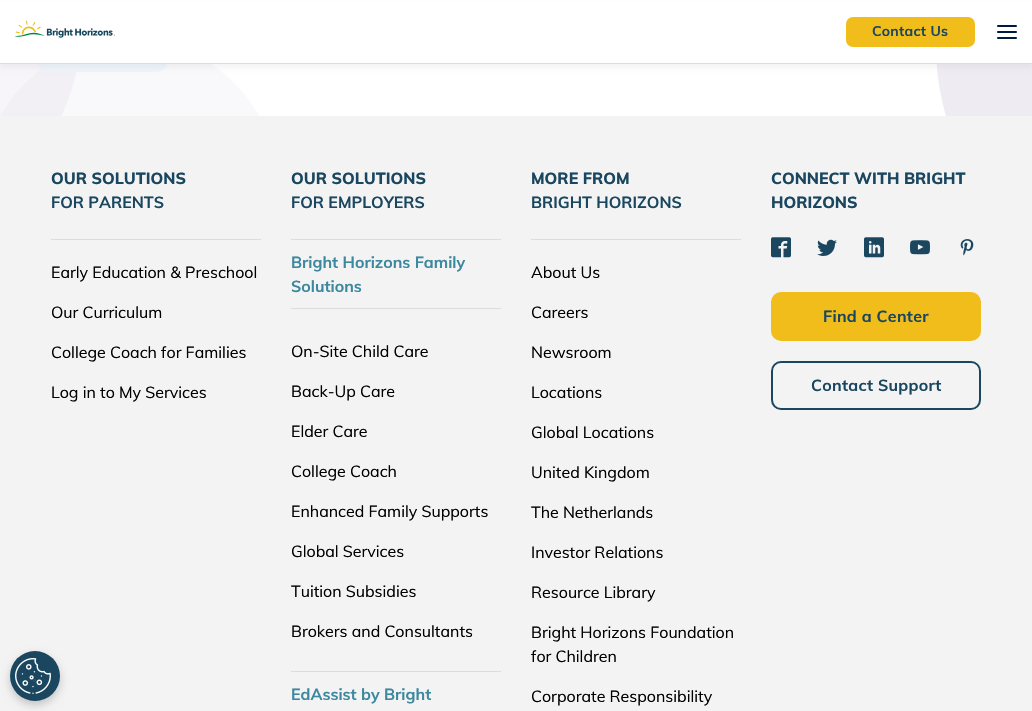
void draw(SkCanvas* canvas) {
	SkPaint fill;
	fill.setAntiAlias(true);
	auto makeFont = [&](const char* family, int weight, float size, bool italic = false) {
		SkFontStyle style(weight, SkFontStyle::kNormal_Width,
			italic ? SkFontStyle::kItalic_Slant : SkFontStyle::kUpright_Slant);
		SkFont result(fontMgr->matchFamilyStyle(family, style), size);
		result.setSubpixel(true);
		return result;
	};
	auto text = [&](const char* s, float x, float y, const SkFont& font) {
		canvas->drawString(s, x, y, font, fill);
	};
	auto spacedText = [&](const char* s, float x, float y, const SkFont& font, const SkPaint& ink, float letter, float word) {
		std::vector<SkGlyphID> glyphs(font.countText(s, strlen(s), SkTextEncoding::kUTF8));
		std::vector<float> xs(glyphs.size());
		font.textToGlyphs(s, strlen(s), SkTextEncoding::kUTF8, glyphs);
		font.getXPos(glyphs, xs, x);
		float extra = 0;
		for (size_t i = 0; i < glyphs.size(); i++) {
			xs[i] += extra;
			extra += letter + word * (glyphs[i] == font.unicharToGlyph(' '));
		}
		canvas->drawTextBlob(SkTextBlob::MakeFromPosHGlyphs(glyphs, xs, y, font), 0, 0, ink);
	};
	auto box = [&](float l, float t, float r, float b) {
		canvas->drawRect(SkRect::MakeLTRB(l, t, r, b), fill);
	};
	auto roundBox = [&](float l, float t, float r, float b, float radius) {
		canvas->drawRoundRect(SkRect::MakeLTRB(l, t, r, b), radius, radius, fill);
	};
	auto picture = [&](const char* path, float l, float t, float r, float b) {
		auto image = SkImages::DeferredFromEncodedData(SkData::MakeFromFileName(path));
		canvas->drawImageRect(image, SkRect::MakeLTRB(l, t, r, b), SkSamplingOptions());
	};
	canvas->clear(0xFFFFFFFF);
	picture("image3.png", 0, 64, 1032, 116);
	fill.setColor(0xFFEEF5FA);
	roundBox(37, 51, 167, 72, 10.5f);
	fill.setColor(0x0A000000);
	fill.setMaskFilter(SkMaskFilter::MakeBlur(kNormal_SkBlurStyle, 2.5f));
	canvas->drawRect(SkRect::MakeLTRB(0, 4, 1032, 68), fill);
	fill.setMaskFilter(nullptr);
	fill.setColor(0xFFFFFFFF);
	box(0, 2, 1032, 63);
	fill.setColor(0xFFDCDCDC);
	box(0, 63, 1032, 64);
	picture("image0.png", 15, 20, 115, 38);
	fill.setColor(0xFFF0BD1B);
	roundBox(846, 17, 975, 47, 7);
	picture("image1.png", 997, 25, 1017, 27);
	picture("image1.png", 997, 31, 1017, 33);
	picture("image1.png", 997, 37, 1017, 39);
	fill.setColor(0xFFF3F3F3);
	box(0, 116, 1032, 711);
	fill.setColor(0x33000000);
	fill.setMaskFilter(SkMaskFilter::MakeBlur(kNormal_SkBlurStyle, 4));
	canvas->drawRoundRect(SkRect::MakeLTRB(10, 655, 60, 705), 25, 25, fill);
	fill.setMaskFilter(nullptr);
	fill.setColor(0xFF1A475F);
	canvas->drawCircle(35, 676, 25, fill);
	picture("image2.png", 15, 658, 51, 694);
	fill.setColor(0xFFDCDCDC);
	box(51, 239, 261, 240);
	box(291, 239, 501, 240);
	box(291, 308, 501, 309);
	box(291, 671, 501, 672);
	box(531, 239, 741, 240);
	picture("image4.png", 771, 237, 791, 258);
	picture("image5.png", 817, 239, 837, 256);
	picture("image6.png", 864, 237, 884, 258);
	picture("image7.png", 910, 240, 930, 255);
	picture("image8.png", 960, 239, 974, 256);
	fill.setColor(0xFFF0BD1B);
	canvas->drawRoundRect(SkRect::MakeLTRB(772, 293, 980, 340), 9, 9, fill);
	fill.setStyle(SkPaint::kStroke_Style);
	fill.setStrokeWidth(2);
	canvas->drawRoundRect(SkRect::MakeLTRB(772, 293, 980, 340), 9, 9, fill);
	fill.setColor(0xFF1A475F);
	canvas->drawRoundRect(SkRect::MakeLTRB(772, 362, 980, 409), 9, 9, fill);
	auto font1 = makeFont("Muli", 700, 14);
	fill.setStyle(SkPaint::kFill_Style);
	spacedText("Contact Us", 872, 36, font1, fill, 0.25f, 0);
	auto font2 = makeFont("Muli", 800, 16);
	text("OUR SOLUTIONS", 51, 184, font2);
	auto font3 = makeFont("Muli", 700, 16);
	text("FOR PARENTS", 51, 208, font3);
	auto font4 = makeFont("Muli", 400, 16);
	fill.setColor(0xFF000000);
	text("Early Education & Preschool", 51, 278, font4);
	text("Our Curriculum", 51, 318, font4);
	text("College Coach for Families", 51, 358, font4);
	text("Log in to My Services", 51, 398, font4);
	fill.setColor(0xFF1A475F);
	text("OUR SOLUTIONS", 291, 184, font2);
	text("FOR EMPLOYERS", 291, 208, font3);
	fill.setColor(0xFF3C889E);
	text("Bright Horizons Family", 291, 268, font3);
	text("Solutions", 291, 292, font3);
	fill.setColor(0xFF000000);
	text("On-Site Child Care", 291, 357, font4);
	text("Back-Up Care", 291, 397, font4);
	text("Elder Care", 291, 437, font4);
	text("College Coach", 291, 477, font4);
	text("Enhanced Family Supports", 291, 517, font4);
	text("Global Services", 291, 557, font4);
	text("Tuition Subsidies", 291, 597, font4);
	text("Brokers and Consultants", 291, 637, font4);
	fill.setColor(0xFF3C889E);
	text("EdAssist by Bright", 291, 700, font3);
	fill.setColor(0xFF1A475F);
	text("MORE FROM", 531, 184, font2);
	text("BRIGHT HORIZONS", 531, 208, font3);
	fill.setColor(0xFF000000);
	text("About Us", 531, 278, font4);
	text("Careers", 531, 318, font4);
	text("Newsroom", 531, 358, font4);
	text("Locations", 531, 398, font4);
	text("Global Locations", 531, 438, font4);
	text("United Kingdom", 531, 478, font4);
	text("The Netherlands", 531, 518, font4);
	text("Investor Relations", 531, 558, font4);
	text("Resource Library", 531, 598, font4);
	text("Bright Horizons Foundation", 531, 638, font4);
	text("for Children", 531, 662, font4);
	text("Corporate Responsibility", 531, 702, font4);
	fill.setColor(0xFF1A475F);
	text("CONNECT WITH BRIGHT", 771, 184, font2);
	text("HORIZONS", 771, 208, font2);
	spacedText("Find a Center", 823, 322, font3, fill, 0.3f, 0);
	spacedText("Contact Support", 811, 391, font3, fill, 0.3f, 0);
}
